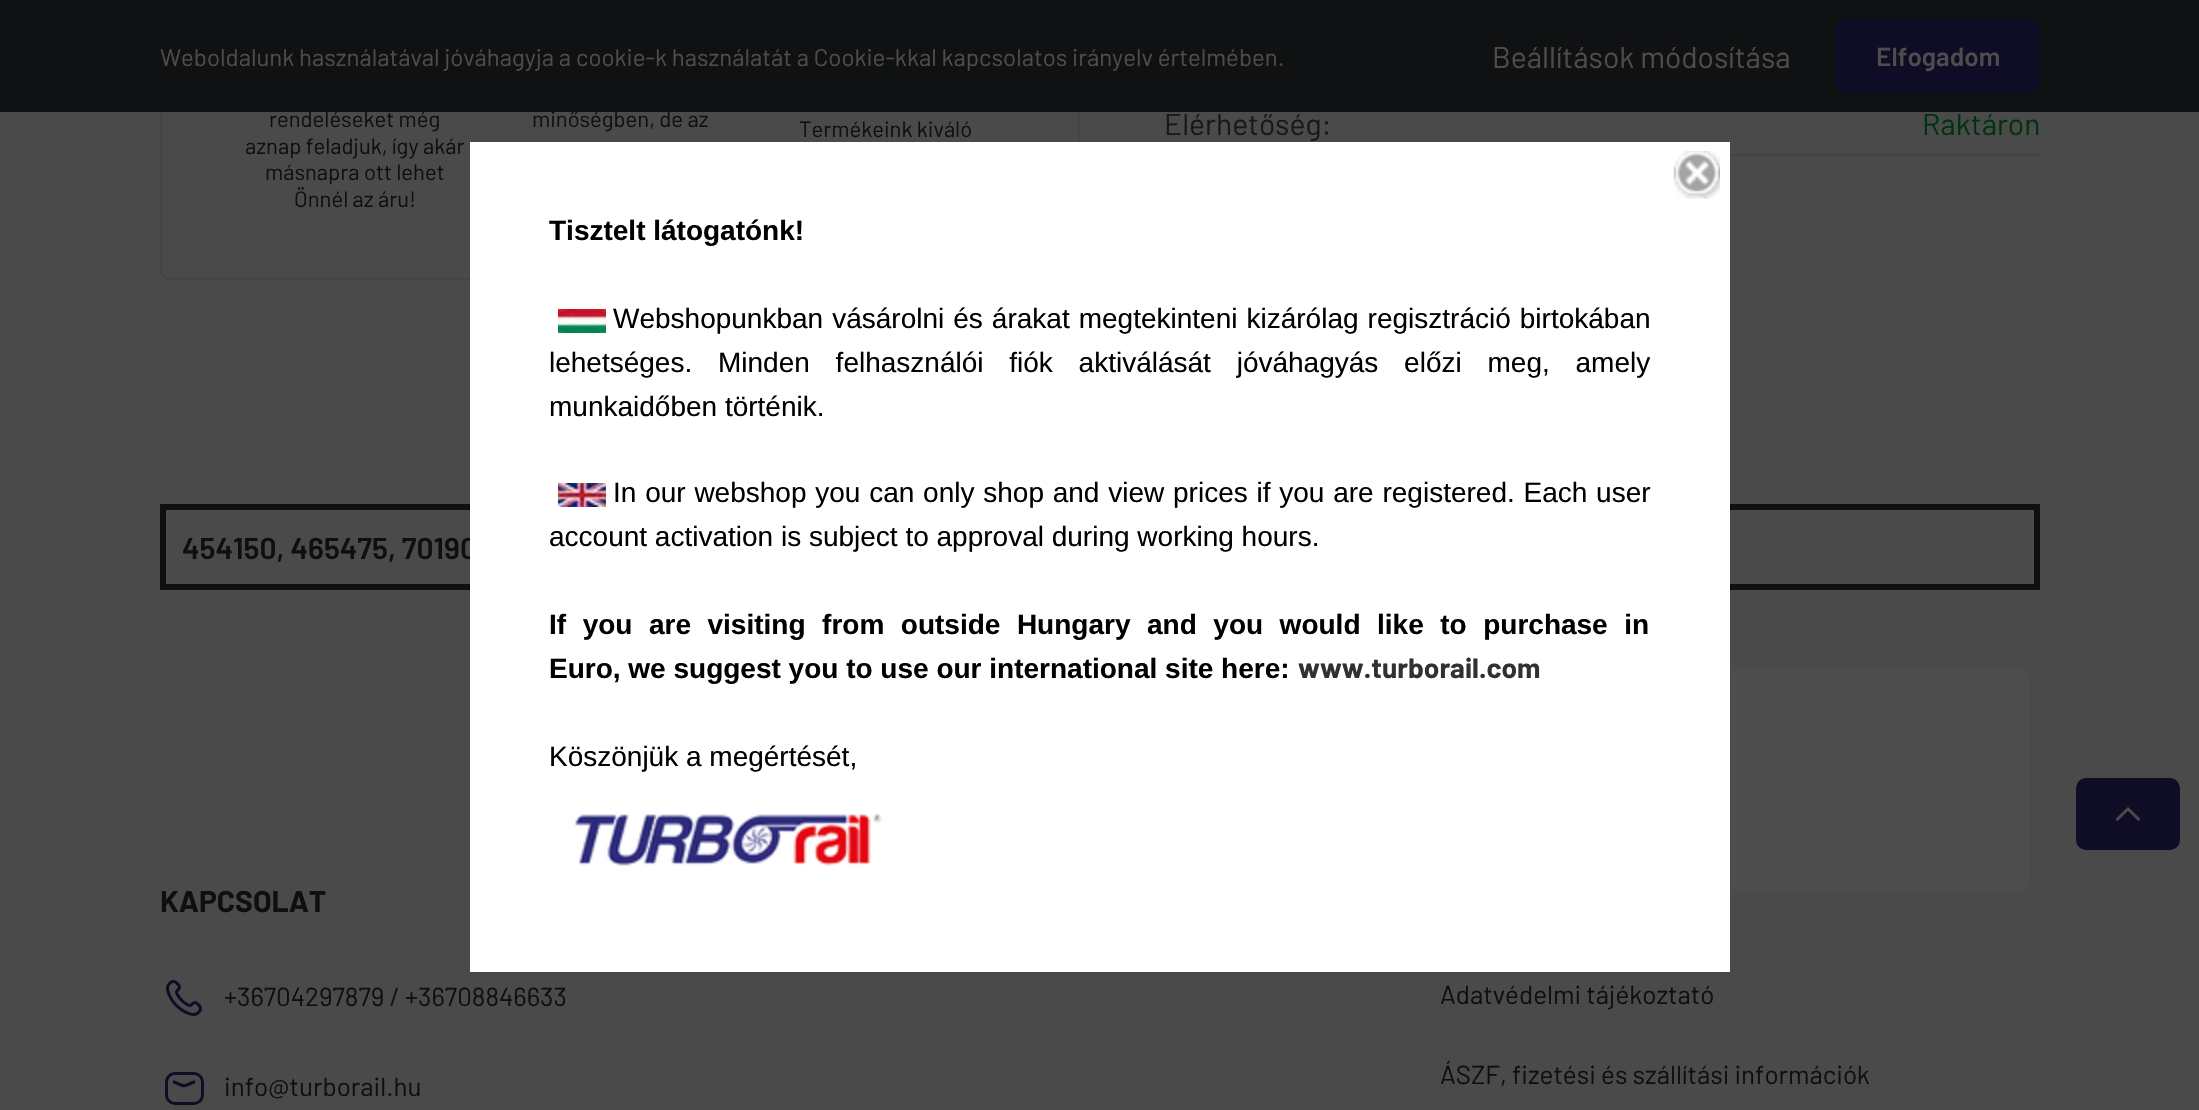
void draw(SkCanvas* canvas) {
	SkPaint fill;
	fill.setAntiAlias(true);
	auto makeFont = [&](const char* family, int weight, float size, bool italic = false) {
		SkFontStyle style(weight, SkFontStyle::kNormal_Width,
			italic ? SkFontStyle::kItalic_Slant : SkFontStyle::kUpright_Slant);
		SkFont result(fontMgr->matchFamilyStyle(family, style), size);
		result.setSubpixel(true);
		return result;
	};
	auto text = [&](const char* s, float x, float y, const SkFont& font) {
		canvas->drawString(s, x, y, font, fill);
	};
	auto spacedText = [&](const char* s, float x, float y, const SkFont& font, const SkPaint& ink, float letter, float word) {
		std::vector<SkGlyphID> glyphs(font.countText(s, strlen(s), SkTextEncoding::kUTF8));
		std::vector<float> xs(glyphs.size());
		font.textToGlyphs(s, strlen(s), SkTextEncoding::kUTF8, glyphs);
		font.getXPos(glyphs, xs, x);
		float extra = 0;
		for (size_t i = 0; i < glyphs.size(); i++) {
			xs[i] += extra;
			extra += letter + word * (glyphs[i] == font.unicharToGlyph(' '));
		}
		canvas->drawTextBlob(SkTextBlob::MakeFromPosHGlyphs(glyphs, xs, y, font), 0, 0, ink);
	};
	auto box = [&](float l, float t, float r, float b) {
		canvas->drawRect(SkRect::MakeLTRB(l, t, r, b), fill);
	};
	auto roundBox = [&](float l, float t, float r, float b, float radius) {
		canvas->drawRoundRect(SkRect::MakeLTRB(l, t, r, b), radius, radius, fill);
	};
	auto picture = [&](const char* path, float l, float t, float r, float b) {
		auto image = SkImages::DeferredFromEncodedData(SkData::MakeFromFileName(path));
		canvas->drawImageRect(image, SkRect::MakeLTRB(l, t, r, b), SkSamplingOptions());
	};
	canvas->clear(0xFF4A4A4A);
	fill.setStyle(SkPaint::kStroke_Style);
	fill.setStrokeWidth(2);
	fill.setColor(0xFF444446);
	canvas->drawRoundRect(SkRect::MakeLTRB(161, -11, 1079, 279), 9, 9, fill);
	fill.setStyle(SkPaint::kFill_Style);
	box(1730, 154, 2042, 156);
	fill.setColor(0xFF4D4D4D);
	roundBox(730, 670, 2030, 890, 10);
	fill.setStyle(SkPaint::kStroke_Style);
	fill.setStrokeWidth(6);
	fill.setColor(0xFF0E0F0F);
	canvas->drawRect(SkRect::MakeLTRB(163, 507, 2037, 587), fill);
	fill.setStyle(SkPaint::kFill_Style);
	fill.setColor(0xFF0E0D25);
	roundBox(2076, 778, 2180, 850, 10);
	picture("image0.png", 2116, 807, 2140, 821);
	picture("image1.png", 166, 980, 202, 1016);
	fill.setStyle(SkPaint::kStroke_Style);
	fill.setStrokeWidth(3);
	canvas->drawRoundRect(SkRect::MakeLTRB(166.5f, 1073.5f, 202.5f, 1103.5f), 8.5f, 8.5f, fill);
	fill.setStrokeCap(SkPaint::kRound_Cap);
	fill.setStrokeJoin(SkPaint::kRound_Join);
	canvas->drawPath(SkPathBuilder().moveTo(174, 1082).cubicTo(186, 1087, 182, 1087, 194, 1082).detach(), fill);
	auto font1 = makeFont("Barlow", 400, 22);
	fill.setStyle(SkPaint::kFill_Style);
	fill.setColor(0xFF0E0F0F);
	text("rendeléseket még", 269, 127, font1);
	text("aznap feladjuk, így akár", 245, 154, font1);
	text("másnapra ott lehet", 265, 180, font1);
	text("Önnél az áru!", 294, 207, font1);
	text("minőségben, de az", 532, 127, font1);
	fill.setColor(0xFF101113);
	box(0, 0, 2199, 112);
	fill.setColor(0xFF0E0D25);
	roundBox(1836, 18, 2040, 94, 10);
	auto font2 = makeFont("Barlow", 600, 26);
	fill.setColor(0xFF4D4D4D);
	text("Elfogadom", 1876, 66, font2);
	auto font3 = makeFont("Barlow", 400, 30);
	text("Beállítások módosítása", 1492, 68, font3);
	auto font4 = makeFont("Barlow", 400, 24);
	text("Weboldalunk használatával jóváhagyja a cookie-k használatát a Cookie-kkal kapcsolatos irányelv értelmében.", 160, 66, font4);
	fill.setColor(0xFF0E0F0F);
	text("Termékeink kiváló", 799, 137, font1);
	fill.setColor(0xFF181819);
	text("Elérhetőség:", 1164, 135, font3);
	fill.setColor(0xFF00320F);
	text("Raktáron", 1922, 135, font3);
	auto font5 = makeFont("Barlow", 600, 30);
	fill.setColor(0xFF0E0F0F);
	text("454150, 465475, 70190", 182, 559, font5);
	auto font6 = makeFont("Barlow", 700, 30);
	text("KAPCSOLAT", 160, 912, font6);
	auto font7 = makeFont("Barlow", 400, 26);
	text("+36704297879 / +36708846633", 224, 1006, font7);
	text("info@turborail.hu", 224, 1096, font7);
	text("Adatvédelmi tájékoztató", 1440, 1004, font7);
	text("ÁSZF, fizetési és szállítási információk", 1440, 1084, font7);
	fill.setColor(0xFFFFFFFF);
	box(470, 142, 1730, 972);
	picture("image2.png", 1673, 151, 1720, 199);
	auto font8 = makeFont("Liberation Sans", 700, 28);
	fill.setColor(0xFF000000);
	text("Tisztelt látogatónk!", 549, 240, font8);
	picture("image3.png", 558, 309, 606, 333);
	auto font9 = makeFont("Liberation Sans", 400, 28);
	spacedText("Webshopunkban vásárolni és árakat megtekinteni kizárólag regisztráció birtokában", 613, 328, font9, fill, 0, 1.25f);
	spacedText("lehetséges. Minden felhasználói fiók aktiválását jóváhagyás előzi meg, amely", 549, 372, font9, fill, 0, 18);
	text("munkaidőben történik.", 549, 416, font9);
	picture("image4.png", 558, 483, 606, 507);
	spacedText("In our webshop you can only shop and view prices if you are registered. Each user", 613, 502, font9, fill, 0, 1);
	text("account activation is subject to approval during working hours.", 549, 546, font9);
	spacedText("If you are visiting from outside Hungary and you would like to purchase in", 549, 634, font8, fill, 0, 8.75f);
	text("Euro, we suggest you to use our international site here:", 549, 678, font8);
	auto font10 = makeFont("Barlow", 700, 28);
	fill.setColor(0xFF2F3132);
	text("www.turborail.com", 1298, 678, font10);
	fill.setColor(0xFF000000);
	text("Köszönjük a megértését,", 549, 766, font9);
	picture("image5.png", 574, 813, 883, 866);
}
